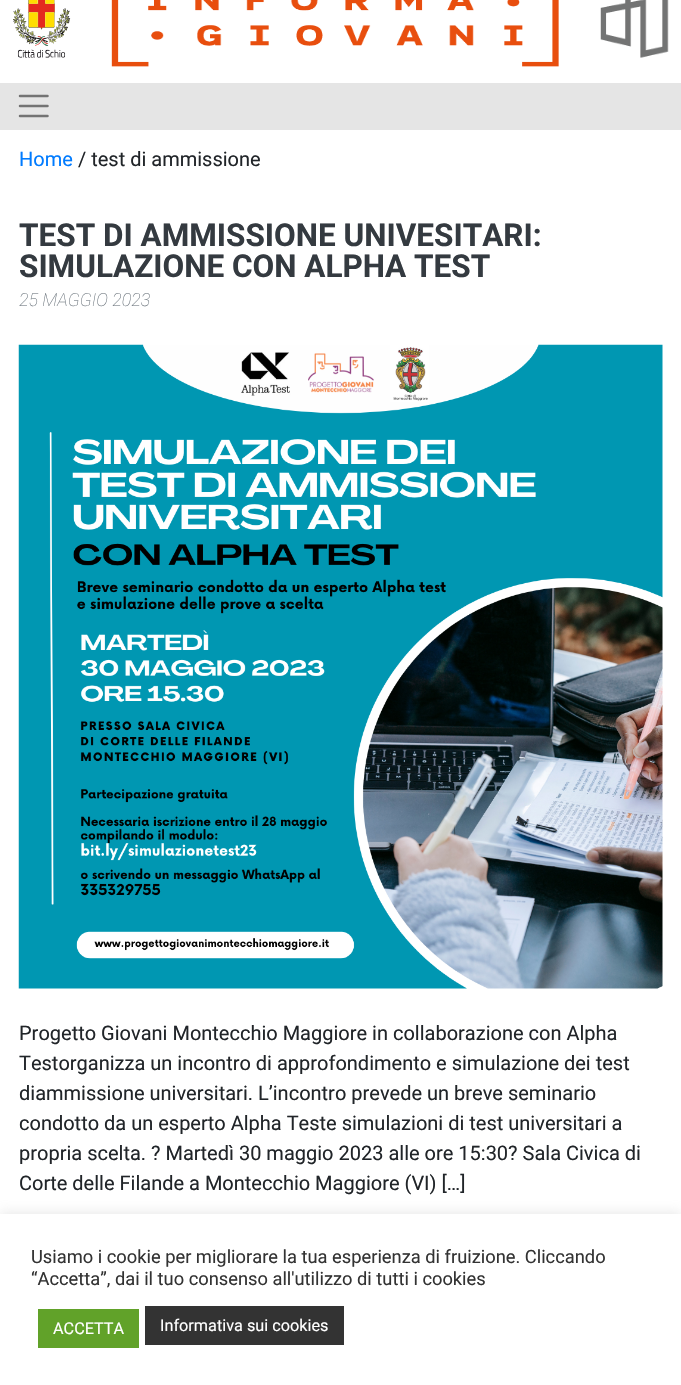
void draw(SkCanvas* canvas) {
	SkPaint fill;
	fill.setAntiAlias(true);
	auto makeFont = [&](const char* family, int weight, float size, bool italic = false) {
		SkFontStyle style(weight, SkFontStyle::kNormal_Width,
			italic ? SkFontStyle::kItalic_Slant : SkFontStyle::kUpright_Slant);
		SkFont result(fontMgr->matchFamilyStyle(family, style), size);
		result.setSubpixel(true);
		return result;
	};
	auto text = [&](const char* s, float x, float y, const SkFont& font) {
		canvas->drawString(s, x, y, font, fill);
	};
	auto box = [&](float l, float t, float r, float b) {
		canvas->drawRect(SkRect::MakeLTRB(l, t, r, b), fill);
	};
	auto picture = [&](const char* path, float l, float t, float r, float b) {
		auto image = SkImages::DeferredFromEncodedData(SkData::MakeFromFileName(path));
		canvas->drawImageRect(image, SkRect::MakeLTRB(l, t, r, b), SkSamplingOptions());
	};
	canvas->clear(0xFFFFFFFF);
	picture("image0.png", 13, 0, 669, 67);
	fill.setColor(0xFFE5E5E5);
	box(0, 83, 681, 130);
	fill.setStyle(SkPaint::kStroke_Style);
	fill.setStrokeWidth(2.5f);
	fill.setStrokeCap(SkPaint::kRound_Cap);
	fill.setColor(0xFF737373);
	canvas->drawPath(SkPathBuilder().moveTo(20, 96).lineTo(47.5f, 96).moveTo(20, 106).lineTo(47.5f, 106).moveTo(20, 116).lineTo(47.5f, 116).detach(), fill);
	picture("image1.png", 18, 344, 663, 989);
	fill.setStyle(SkPaint::kFill_Style);
	fill.setColor(0x4DACABAB);
	fill.setMaskFilter(SkMaskFilter::MakeBlur(kNormal_SkBlurStyle, 6));
	canvas->drawRect(SkRect::MakeLTRB(0, 1213, 681, 1384), fill);
	fill.setMaskFilter(nullptr);
	fill.setColor(0xFFFFFFFF);
	box(0, 1214, 681, 1385);
	fill.setColor(0xFF61A229);
	box(38, 1309, 139, 1348);
	fill.setColor(0xFF333333);
	box(145, 1306, 344, 1345);
	auto font1 = makeFont("Roboto", 400, 20);
	fill.setColor(0xFF007BFF);
	text("Home", 19, 166, font1);
	fill.setColor(0xFF212529);
	text("/ test di ammissione", 78, 166, font1);
	auto font2 = makeFont("Roboto", 700, 31.5f);
	fill.setColor(0xFF343A40);
	text("TEST DI AMMISSIONE UNIVESITARI:", 19, 246, font2);
	text("SIMULAZIONE CON ALPHA TEST", 19, 277, font2);
	auto font3 = makeFont("Roboto", 100, 18, true);
	fill.setColor(0xFF6C757D);
	text("25 MAGGIO 2023", 19, 306, font3);
	fill.setColor(0xFF212529);
	text("Progetto Giovani Montecchio Maggiore in collaborazione con Alpha", 19, 1040, font1);
	text("Testorganizza un incontro di approfondimento e simulazione dei test", 19, 1070, font1);
	text("diammissione universitari. L’incontro prevede un breve seminario", 19, 1100, font1);
	text("condotto da un esperto Alpha Teste simulazioni di test universitari a", 19, 1130, font1);
	text("propria scelta. ? Martedì 30 maggio 2023 alle ore 15:30? Sala Civica di", 19, 1160, font1);
	text("Corte delle Filande a Montecchio Maggiore (VI) […]", 19, 1190, font1);
	auto font4 = makeFont("Roboto", 400, 18.3f);
	fill.setColor(0xFF333333);
	text("Usiamo i cookie per migliorare la tua esperienza di fruizione. Cliccando", 31, 1263, font4);
	text("“Accetta”, dai il tuo consenso all'utilizzo di tutti i cookies", 31, 1285, font4);
	auto font5 = makeFont("Roboto", 400, 16.25f);
	fill.setColor(0xFFFFFFFF);
	text("ACCETTA", 53, 1334, font5);
	text("Informativa sui cookies", 160, 1331, font5);
}
